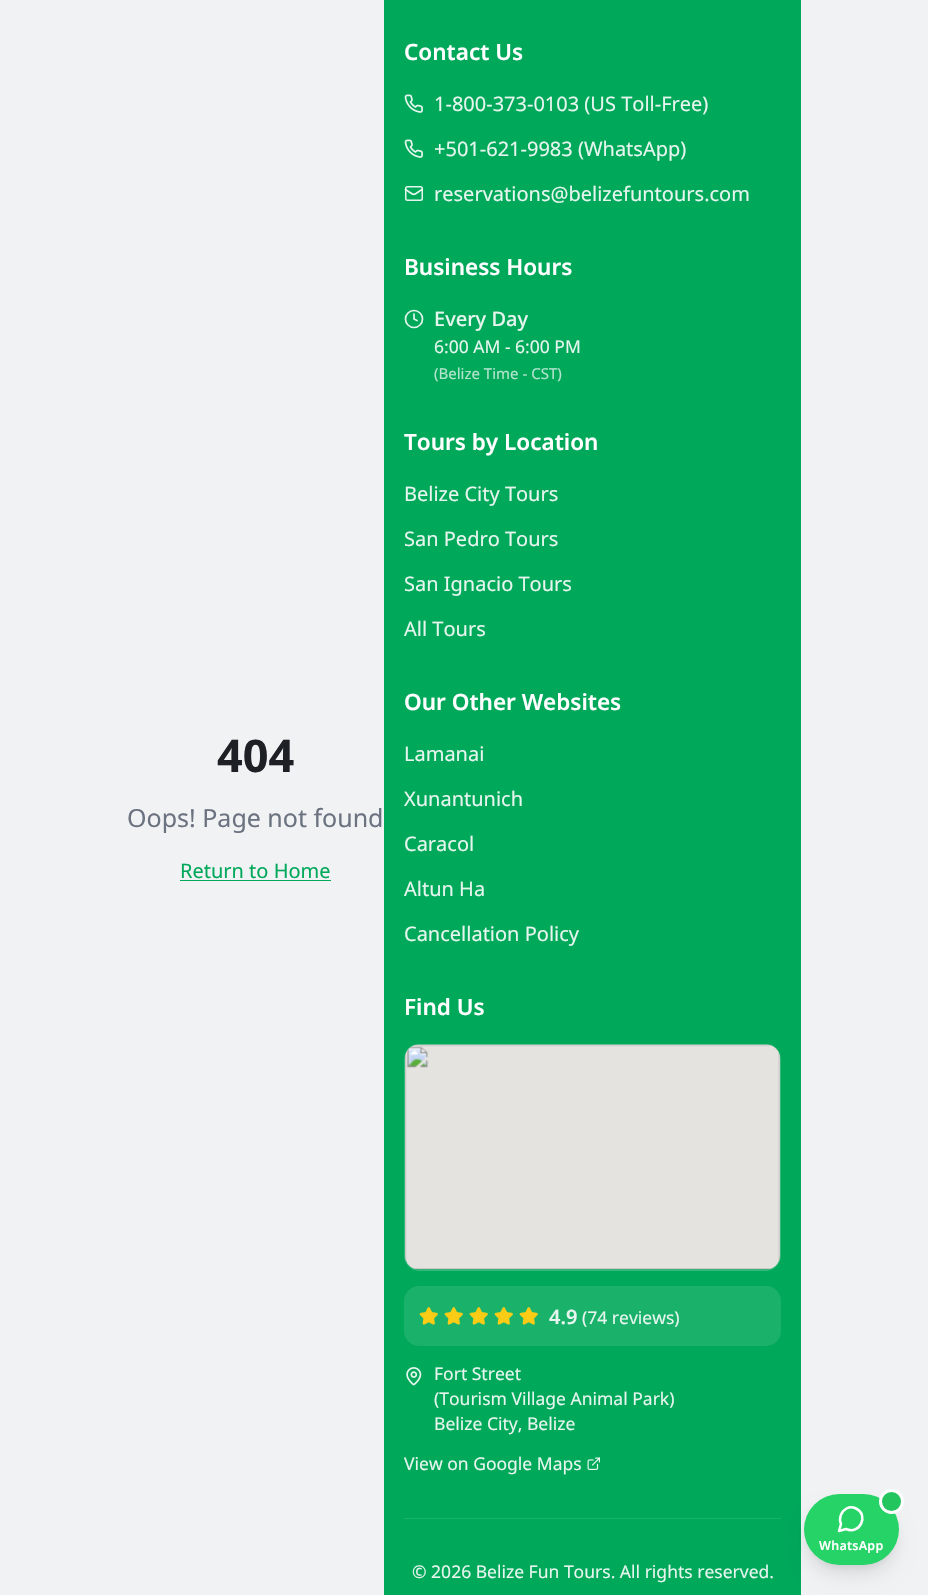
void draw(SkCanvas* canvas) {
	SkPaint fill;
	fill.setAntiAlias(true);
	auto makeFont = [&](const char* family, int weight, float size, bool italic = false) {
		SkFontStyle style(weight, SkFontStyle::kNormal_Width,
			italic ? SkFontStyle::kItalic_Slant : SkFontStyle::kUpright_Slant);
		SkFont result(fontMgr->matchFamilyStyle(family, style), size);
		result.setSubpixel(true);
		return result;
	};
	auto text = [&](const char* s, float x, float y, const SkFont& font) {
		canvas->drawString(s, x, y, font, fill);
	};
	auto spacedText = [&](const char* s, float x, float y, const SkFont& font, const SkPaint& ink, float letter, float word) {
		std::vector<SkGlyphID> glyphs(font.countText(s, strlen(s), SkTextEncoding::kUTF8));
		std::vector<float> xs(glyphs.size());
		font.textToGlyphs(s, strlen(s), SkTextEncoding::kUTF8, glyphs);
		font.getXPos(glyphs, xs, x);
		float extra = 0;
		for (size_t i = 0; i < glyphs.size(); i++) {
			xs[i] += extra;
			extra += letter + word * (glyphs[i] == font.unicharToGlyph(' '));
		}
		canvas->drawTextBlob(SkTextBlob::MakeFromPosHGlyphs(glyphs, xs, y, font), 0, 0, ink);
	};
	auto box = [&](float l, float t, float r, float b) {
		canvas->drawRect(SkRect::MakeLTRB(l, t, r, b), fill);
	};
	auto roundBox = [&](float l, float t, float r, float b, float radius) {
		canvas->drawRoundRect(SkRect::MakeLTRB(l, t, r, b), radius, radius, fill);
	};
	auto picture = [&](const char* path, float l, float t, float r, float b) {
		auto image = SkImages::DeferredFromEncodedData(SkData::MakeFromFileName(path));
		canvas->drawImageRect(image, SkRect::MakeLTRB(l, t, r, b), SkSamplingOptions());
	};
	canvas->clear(0xFFF1F2F4);
	fill.setColor(0xFF00A85A);
	box(180, 880, 331, 881);
	box(384, 0, 801, 1595);
	picture("image0.png", 404, 94, 423, 113);
	picture("image0.png", 404, 139, 423, 158);
	fill.setStyle(SkPaint::kStroke_Style);
	fill.setStrokeWidth(1.5f);
	fill.setColor(0xFFE6F6EF);
	canvas->drawRoundRect(SkRect::MakeLTRB(405.75f, 186.75f, 422.25f, 200.25f), 1.75f, 1.75f, fill);
	fill.setStrokeWidth(1.7f);
	fill.setStrokeCap(SkPaint::kRound_Cap);
	fill.setStrokeJoin(SkPaint::kRound_Join);
	fill.setColor(0xE6FFFFFF);
	canvas->drawPath(SkPathBuilder().moveTo(422, 189.5f).cubicTo(412, 196, 415.5f, 196, 405.5f, 189.5f).detach(), fill);
	fill.setStrokeCap(SkPaint::kButt_Cap);
	fill.setStrokeJoin(SkPaint::kMiter_Join);
	fill.setColor(0xFFE6F6EF);
	canvas->drawCircle(414, 319, 8.5f, fill);
	fill.setStrokeCap(SkPaint::kRound_Cap);
	fill.setStrokeJoin(SkPaint::kRound_Join);
	canvas->drawPath(SkPathBuilder().moveTo(414, 314).lineTo(414, 319).lineTo(417, 320.5f).detach(), fill);
	fill.setStrokeWidth(1);
	fill.setStrokeCap(SkPaint::kButt_Cap);
	fill.setStrokeJoin(SkPaint::kMiter_Join);
	fill.setColor(0xFF33B97B);
	canvas->drawRoundRect(SkRect::MakeLTRB(404.5f, 1044.5f, 780.5f, 1270.5f), 14.5f, 14.5f, fill);
	picture("image1.png", 405, 1044, 780, 1270);
	fill.setStyle(SkPaint::kFill_Style);
	fill.setColor(0xFF1AB16B);
	roundBox(404, 1286, 781, 1346, 15);
	picture("image2.png", 419, 1307, 438, 1325);
	picture("image2.png", 444, 1307, 463, 1325);
	picture("image2.png", 469, 1307, 488, 1325);
	picture("image2.png", 494, 1307, 513, 1325);
	picture("image2.png", 519, 1307, 538, 1325);
	picture("image3.png", 406, 1367, 422, 1386);
	picture("image4.png", 587, 1457, 600, 1470);
	box(404, 1518, 781, 1519);
	fill.setColor(0x1A000000);
	fill.setMaskFilter(SkMaskFilter::MakeBlur(kNormal_SkBlurStyle, 4));
	canvas->drawRoundRect(SkRect::MakeLTRB(809, 1504, 894, 1565), 30.5f, 30.5f, fill);
	fill.setMaskFilter(nullptr);
	fill.setMaskFilter(SkMaskFilter::MakeBlur(kNormal_SkBlurStyle, 9.5f));
	canvas->drawRoundRect(SkRect::MakeLTRB(808, 1510, 895, 1574), 32, 32, fill);
	fill.setMaskFilter(nullptr);
	fill.setColor(0xFF25D366);
	roundBox(804, 1494, 899, 1565, 35.5f);
	fill.setColor(0xFF22C55E);
	canvas->drawCircle(891.5f, 1501.5f, 11, fill);
	fill.setStyle(SkPaint::kStroke_Style);
	fill.setStrokeWidth(3);
	fill.setColor(0xFFFFFFFF);
	canvas->drawCircle(891.5f, 1501.5f, 11, fill);
	fill.setStrokeWidth(2.5f);
	fill.setStrokeCap(SkPaint::kRound_Cap);
	fill.setStrokeJoin(SkPaint::kRound_Join);
	canvas->drawPath(SkPathBuilder().moveTo(846, 1529).cubicTo(859.5f, 1535.5f, 869.5f, 1515, 856, 1508.5f).cubicTo(853, 1507, 849.5f, 1507, 846.5f, 1508.5f).cubicTo(841, 1511.5f, 838.5f, 1518.5f, 841, 1524).lineTo(839, 1531).close().detach(), fill);
	auto font1 = makeFont("Noto Sans", 700, 45);
	fill.setStyle(SkPaint::kFill_Style);
	fill.setColor(0xFF1D2025);
	text("404", 217, 772, font1);
	auto font2 = makeFont("Noto Sans", 400, 25);
	fill.setColor(0xFF6B7280);
	text("Oops! Page not found", 127, 827, font2);
	auto font3 = makeFont("Noto Sans", 400, 20);
	fill.setColor(0xFF00A85A);
	text("Return to Home", 180, 878, font3);
	auto font4 = makeFont("Noto Sans", 600, 22.5f);
	fill.setColor(0xFFFFFFFF);
	text("Contact Us", 404, 60, font4);
	fill.setColor(0xFFE6F6EF);
	text("1-800-373-0103 (US Toll-Free)", 434, 111, font3);
	text("+501-621-9983 (WhatsApp)", 434, 156, font3);
	text("reservations@belizefuntours.com", 434, 201, font3);
	fill.setColor(0xFFFFFFFF);
	text("Business Hours", 404, 275, font4);
	auto font5 = makeFont("Noto Sans", 500, 20);
	fill.setColor(0xFFE6F6EF);
	text("Every Day", 434, 326, font5);
	auto font6 = makeFont("Noto Sans", 400, 17.5f);
	text("6:00 AM - 6:00 PM", 434, 353, font6);
	auto font7 = makeFont("Noto Sans", 400, 15);
	fill.setColor(0xFFB3E5CE);
	text("(Belize Time - CST)", 434, 379, font7);
	fill.setColor(0xFFFFFFFF);
	text("Tours by Location", 404, 450, font4);
	fill.setColor(0xFFE6F6EF);
	text("Belize City Tours", 404, 501, font3);
	text("San Pedro Tours", 404, 546, font3);
	text("San Ignacio Tours", 404, 591, font3);
	text("All Tours", 404, 636, font3);
	fill.setColor(0xFFFFFFFF);
	text("Our Other Websites", 404, 710, font4);
	fill.setColor(0xFFE6F6EF);
	text("Lamanai", 404, 761, font3);
	text("Xunantunich", 404, 806, font3);
	text("Caracol", 404, 851, font3);
	text("Altun Ha", 404, 896, font3);
	text("Cancellation Policy", 404, 941, font3);
	fill.setColor(0xFFFFFFFF);
	text("Find Us", 404, 1015, font4);
	auto font8 = makeFont("Noto Sans", 600, 20);
	fill.setColor(0xFFE6F6EF);
	text("4.9", 549, 1324, font8);
	text("(74 reviews)", 582, 1324, font6);
	text("Fort Street", 434, 1380, font6);
	text("(Tourism Village Animal Park)", 434, 1405, font6);
	text("Belize City, Belize", 434, 1430, font6);
	text("View on Google Maps", 404, 1470, font6);
	text("© 2026 Belize Fun Tours. All rights reserved.", 412, 1578, font6);
	auto font9 = makeFont("Noto Sans", 600, 12.5f);
	fill.setColor(0xFFFFFFFF);
	spacedText("WhatsApp", 819, 1550, font9, fill, 0.25f, 0);
}
